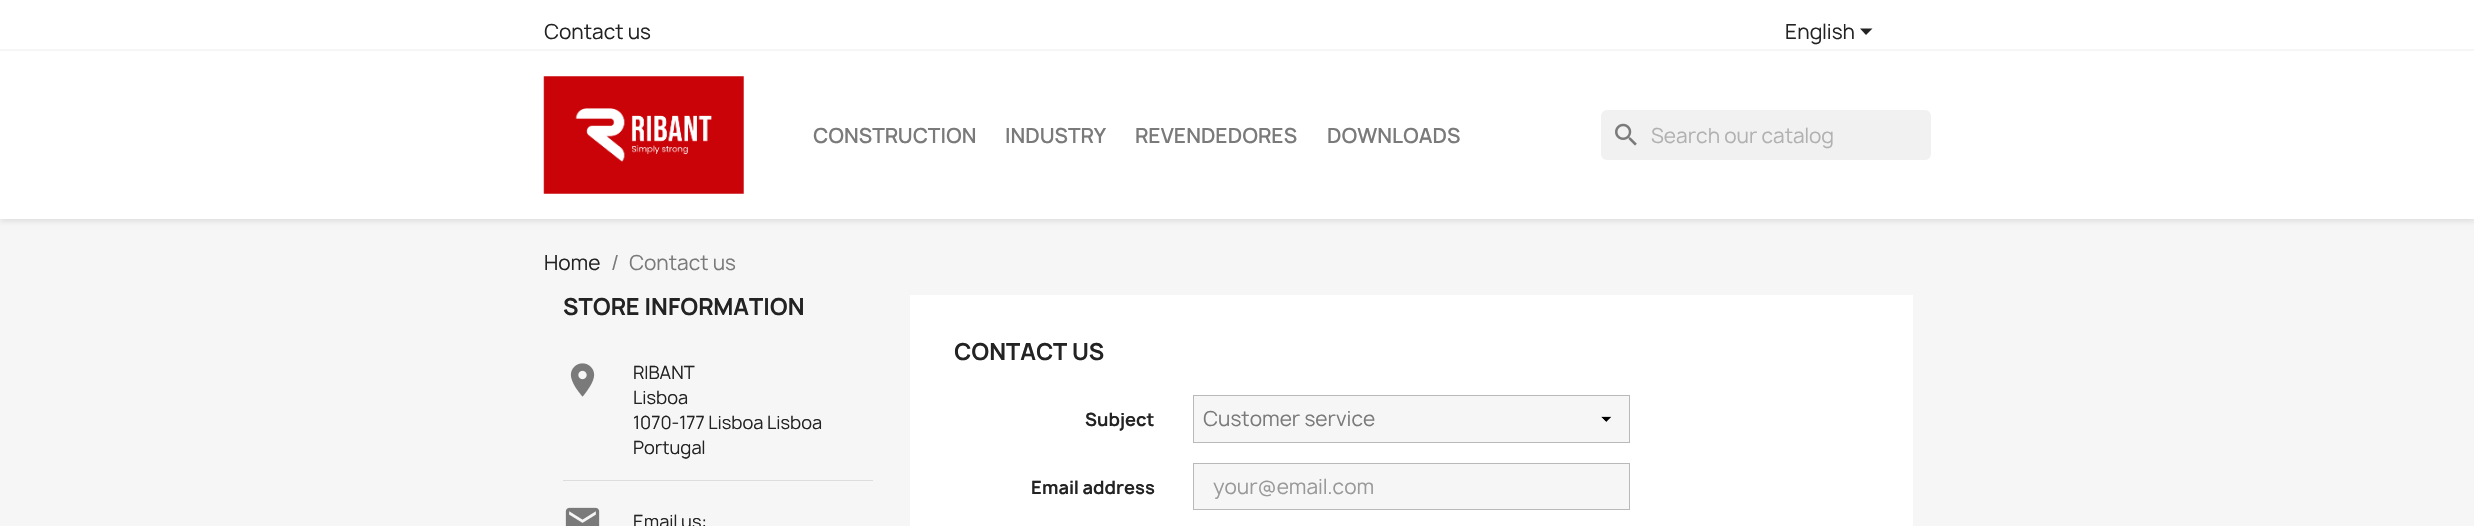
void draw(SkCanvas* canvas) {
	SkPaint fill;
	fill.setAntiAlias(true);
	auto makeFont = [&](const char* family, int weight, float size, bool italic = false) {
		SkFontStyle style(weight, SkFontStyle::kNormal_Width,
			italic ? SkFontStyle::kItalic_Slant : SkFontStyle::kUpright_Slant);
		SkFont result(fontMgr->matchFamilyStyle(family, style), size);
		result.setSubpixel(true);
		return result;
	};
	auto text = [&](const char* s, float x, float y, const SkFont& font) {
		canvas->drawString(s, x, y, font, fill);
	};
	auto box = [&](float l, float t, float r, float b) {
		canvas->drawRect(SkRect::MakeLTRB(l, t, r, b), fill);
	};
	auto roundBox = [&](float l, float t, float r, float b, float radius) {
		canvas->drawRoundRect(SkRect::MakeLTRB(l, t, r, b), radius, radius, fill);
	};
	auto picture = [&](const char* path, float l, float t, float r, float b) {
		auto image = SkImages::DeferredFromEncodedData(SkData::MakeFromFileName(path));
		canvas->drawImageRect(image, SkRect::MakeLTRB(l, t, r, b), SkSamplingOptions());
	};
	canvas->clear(0xFFF6F6F6);
	fill.setColor(0x1C000000);
	fill.setMaskFilter(SkMaskFilter::MakeBlur(kNormal_SkBlurStyle, 3));
	canvas->drawRect(SkRect::MakeLTRB(0, 3, 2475, 221), fill);
	fill.setMaskFilter(nullptr);
	fill.setColor(0xFFFFFFFF);
	box(0, 0, 2474, 49);
	fill.setColor(0xFFF6F6F6);
	box(0, 49, 2474, 51);
	fill.setColor(0xFF232323);
	canvas->drawPath(SkPathBuilder().moveTo(1860, 28.5f).lineTo(1872.5f, 28.5f).lineTo(1866, 35).close().detach(), fill);
	fill.setColor(0xFFFFFFFF);
	box(0, 51, 2474, 219);
	picture("image0.png", 543, 76, 744, 194);
	fill.setColor(0xFFF1F1F1);
	roundBox(1601, 110, 1931, 160, 6);
	picture("image1.png", 1615, 123, 1637, 146);
	picture("image2.png", 570, 363, 595, 397);
	fill.setColor(0xFFDDDDDD);
	box(563, 480, 873, 481);
	picture("image3.png", 565, 507, 600, 526);
	fill.setColor(0xFFFFFFFF);
	box(910, 295, 1913, 526);
	fill.setColor(0xFFF6F6F6);
	box(1194, 396, 1629, 442);
	picture("image4.png", 1601, 416, 1612, 422);
	fill.setStyle(SkPaint::kStroke_Style);
	fill.setStrokeWidth(1);
	fill.setColor(0xFFB9B9B9);
	canvas->drawRect(SkRect::MakeLTRB(1193.5f, 395.5f, 1629.5f, 442.5f), fill);
	fill.setStyle(SkPaint::kFill_Style);
	fill.setColor(0xFFF6F6F6);
	canvas->drawRect(SkRect::MakeLTRB(1193.5f, 463.5f, 1629.5f, 509.5f), fill);
	fill.setStyle(SkPaint::kStroke_Style);
	fill.setColor(0xFFB9B9B9);
	canvas->drawRect(SkRect::MakeLTRB(1193.5f, 463.5f, 1629.5f, 509.5f), fill);
	auto font1 = makeFont("Manrope", 400, 20);
	fill.setStyle(SkPaint::kFill_Style);
	fill.setColor(0xFF232323);
	text("Contact us", 544, 39, font1);
	text("English", 1785, 39, font1);
	auto font2 = makeFont("Manrope", 600, 20);
	fill.setColor(0xFF7A7A7A);
	text("CONSTRUCTION", 813, 143, font2);
	text("INDUSTRY", 1005, 143, font2);
	text("REVENDEDORES", 1135, 143, font2);
	text("DOWNLOADS", 1327, 143, font2);
	fill.setColor(0xFFB1B1B1);
	text("Search our catalog", 1651, 143, font1);
	fill.setColor(0xFF232323);
	text("Home", 544, 270, font1);
	fill.setColor(0xFF7A7A7A);
	text("/", 611, 270, font1);
	text("Contact us", 629, 270, font1);
	auto font3 = makeFont("Manrope", 700, 22.5f);
	fill.setColor(0xFF232323);
	text("STORE INFORMATION", 563, 315, font3);
	auto font4 = makeFont("Manrope", 400, 17.5f);
	text("RIBANT", 633, 379, font4);
	text("Lisboa", 633, 404, font4);
	text("1070-177 Lisboa Lisboa", 633, 429, font4);
	text("Portugal", 633, 454, font4);
	text("Email us:", 633, 528, font4);
	text("CONTACT US", 954, 360, font3);
	auto font5 = makeFont("Manrope", 700, 17.5f);
	text("Subject", 1085, 426, font5);
	fill.setColor(0xFF7A7A7A);
	text("Customer service", 1203, 426, font1);
	fill.setColor(0xFF232323);
	text("Email address", 1031, 494, font5);
	fill.setColor(0xFF999999);
	text("your@email.com", 1213, 494, font1);
}
